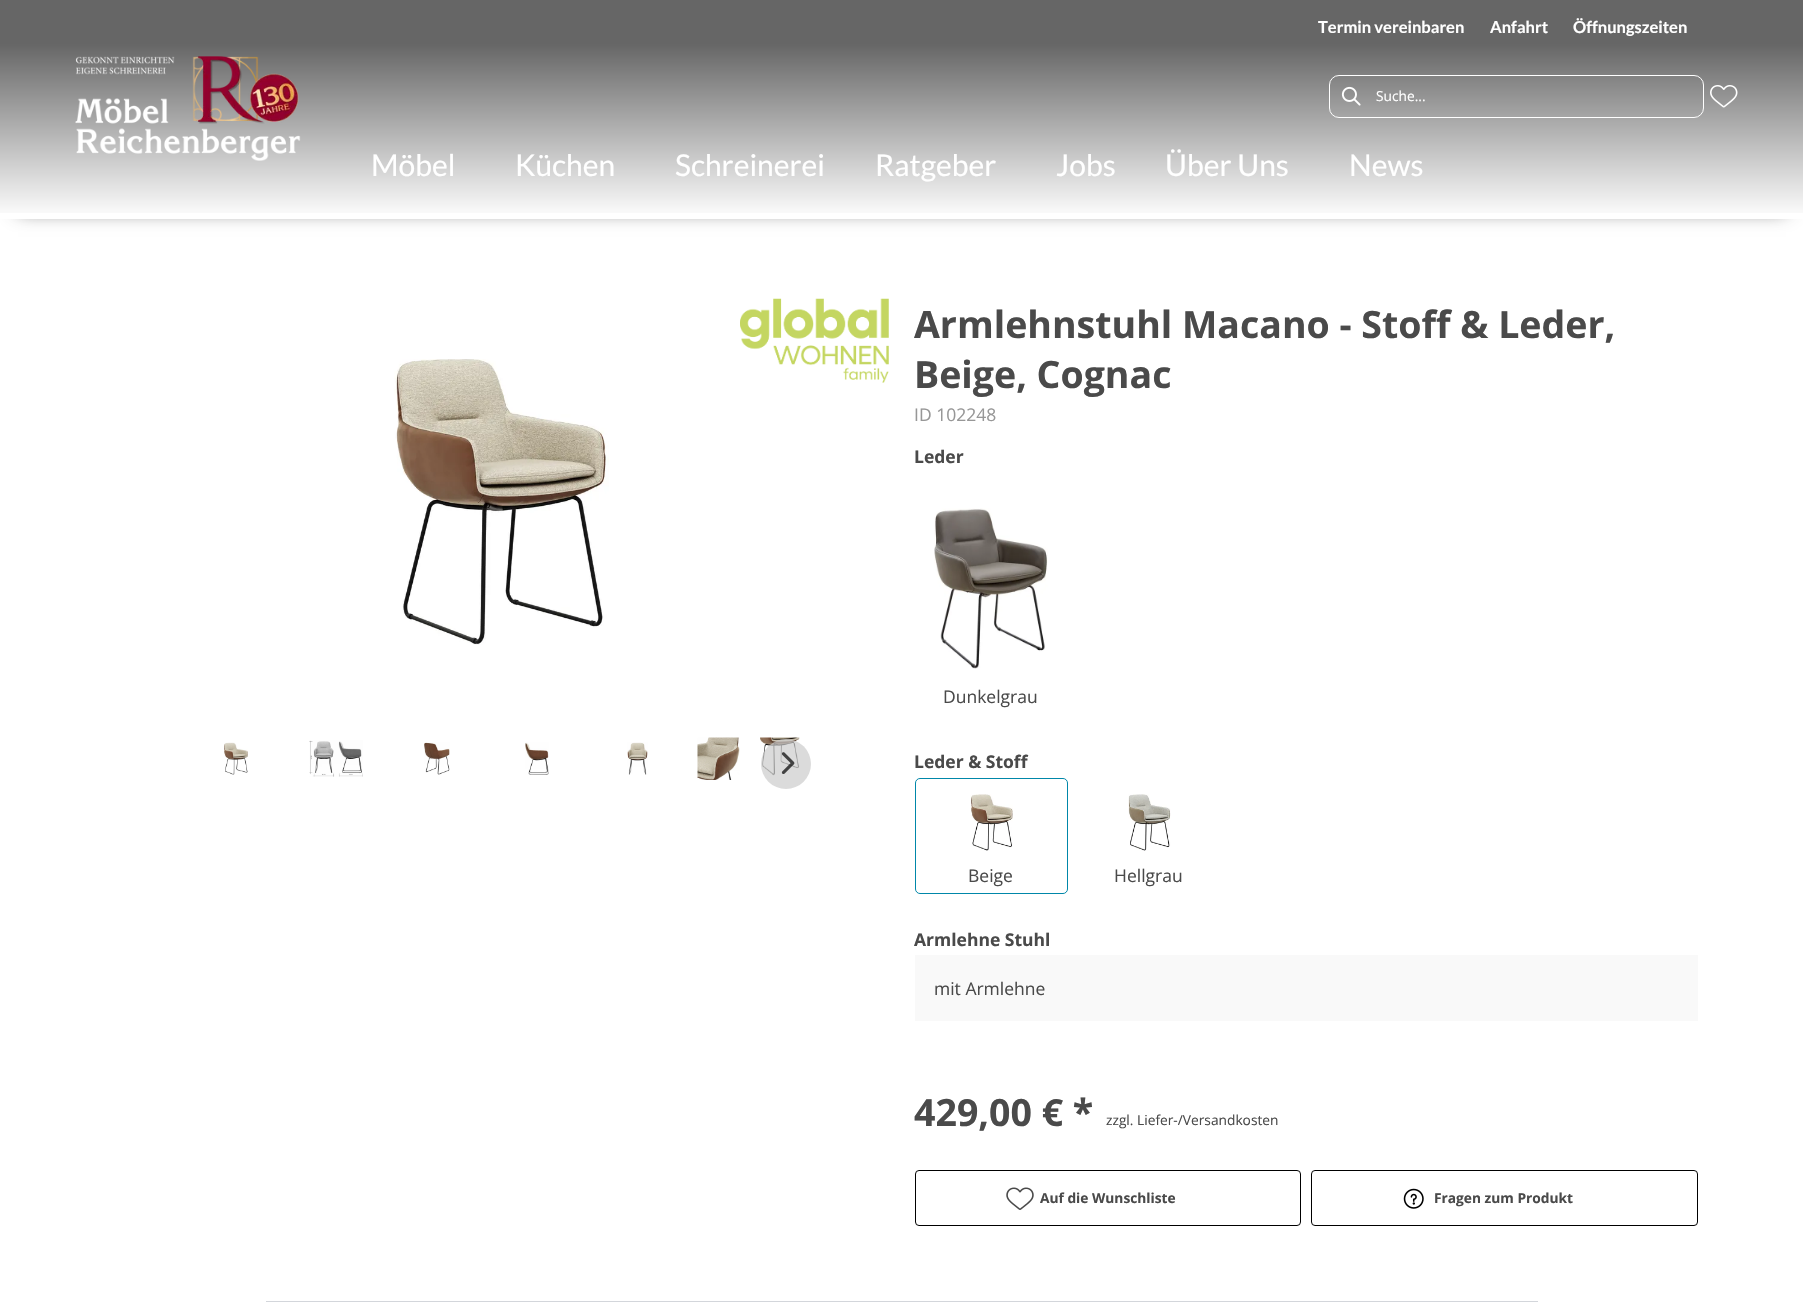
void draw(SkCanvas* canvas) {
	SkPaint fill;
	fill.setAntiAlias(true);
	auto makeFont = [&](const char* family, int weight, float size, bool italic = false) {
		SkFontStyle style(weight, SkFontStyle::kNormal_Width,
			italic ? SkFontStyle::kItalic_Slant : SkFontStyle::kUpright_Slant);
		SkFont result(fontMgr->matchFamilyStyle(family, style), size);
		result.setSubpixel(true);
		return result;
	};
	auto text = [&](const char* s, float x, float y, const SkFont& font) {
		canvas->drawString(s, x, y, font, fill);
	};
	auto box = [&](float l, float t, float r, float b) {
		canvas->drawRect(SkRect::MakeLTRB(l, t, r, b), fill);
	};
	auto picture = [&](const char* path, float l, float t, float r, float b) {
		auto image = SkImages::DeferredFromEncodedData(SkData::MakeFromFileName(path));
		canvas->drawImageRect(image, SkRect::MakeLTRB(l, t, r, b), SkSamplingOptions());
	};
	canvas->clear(0xFFFFFFFF);
	canvas->save();
	canvas->clipPath(SkPathBuilder(SkPathFillType::kEvenOdd).moveTo(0, 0).lineTo(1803, 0).lineTo(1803, 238).lineTo(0, 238).close().moveTo(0, 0).lineTo(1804, 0).lineTo(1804, 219).lineTo(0, 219).close().detach(), true);
	fill.setColor(0xFF4A4A4A);
	fill.setMaskFilter(SkMaskFilter::MakeBlur(kNormal_SkBlurStyle, 9));
	canvas->drawRect(SkRect::MakeLTRB(18, 26, 1786, 210), fill);
	fill.setMaskFilter(nullptr);
	canvas->restore();
	{
		const SkColor colors[] = {0x00000000, 0x99000000};
		const float stops[] = {0, 0.8f};
		const SkPoint ends[] = {{902, 219}, {902, 0}};
		fill.setShader(SkGradientShader::MakeLinear(ends, colors, stops, 2, SkTileMode::kClamp));
		fill.setAlpha(255);
	}
	box(0, 0, 1803, 213);
	picture("image0.png", 75, 56, 301, 161);
	fill.setStyle(SkPaint::kStroke_Style);
	fill.setStrokeWidth(1);
	fill.setShader(nullptr);
	fill.setColor(0xFFFFFFFF);
	canvas->drawRoundRect(SkRect::MakeLTRB(1329.5f, 75.5f, 1703.5f, 117.5f), 9.5f, 9.5f, fill);
	picture("image1.png", 1341, 86, 1361, 106);
	picture("image2.png", 1710, 85, 1738, 108);
	picture("image3.png", 740, 298, 889, 383);
	picture("image4.png", 394, 359, 609, 645);
	picture("image5.png", 224, 742, 248, 775);
	picture("image6.png", 309, 740, 363, 777);
	picture("image7.png", 424, 742, 450, 775);
	picture("image8.png", 525, 742, 549, 775);
	picture("image9.png", 627, 742, 648, 775);
	picture("image10.png", 697, 737, 740, 780);
	picture("image11.png", 760, 737, 800, 776);
	fill.setStyle(SkPaint::kFill_Style);
	fill.setColor(0xB3CCCCCC);
	canvas->drawCircle(786, 764, 25, fill);
	picture("image12.png", 781, 752, 795, 774);
	picture("image13.png", 934, 508, 1048, 669);
	fill.setStyle(SkPaint::kStroke_Style);
	fill.setColor(0xFF0087A9);
	canvas->drawRoundRect(SkRect::MakeLTRB(915.5f, 778.5f, 1067.5f, 893.5f), 4.5f, 4.5f, fill);
	picture("image14.png", 970, 794, 1013, 851);
	picture("image15.png", 1128, 794, 1171, 851);
	fill.setStyle(SkPaint::kFill_Style);
	fill.setColor(0xFFF9F9F9);
	box(915, 955, 1698, 1021);
	fill.setStyle(SkPaint::kStroke_Style);
	fill.setColor(0xFF000000);
	canvas->drawRoundRect(SkRect::MakeLTRB(915.5f, 1170.5f, 1300.5f, 1225.5f), 3.5f, 3.5f, fill);
	picture("image16.png", 1006, 1187, 1034, 1210);
	canvas->drawRoundRect(SkRect::MakeLTRB(1311.5f, 1170.5f, 1697.5f, 1225.5f), 3.5f, 3.5f, fill);
	picture("image17.png", 1403, 1188, 1424, 1209);
	fill.setStyle(SkPaint::kFill_Style);
	fill.setColor(0xFFD3D6DB);
	box(266, 1301, 1538, 1302);
	auto font1 = makeFont("Lato", 700, 16.5f);
	fill.setColor(0xFFFFFFFF);
	text("Termin vereinbaren", 1318, 33, font1);
	text("Anfahrt", 1490, 33, font1);
	text("Öffnungszeiten", 1573, 33, font1);
	auto font2 = makeFont("Open Sans", 400, 13.75f);
	text("Suche...", 1376, 101, font2);
	auto font3 = makeFont("Lato", 400, 30);
	text("Möbel", 371, 176, font3);
	text("Küchen", 515, 176, font3);
	text("Schreinerei", 675, 176, font3);
	text("Ratgeber", 875, 176, font3);
	text("Jobs", 1056, 176, font3);
	text("Über Uns", 1165, 176, font3);
	text("News", 1349, 176, font3);
	auto font4 = makeFont("Open Sans", 700, 37.5f);
	fill.setColor(0xFF4A4A4A);
	text("Armlehnstuhl Macano - Stoff & Leder,", 914, 338, font4);
	text("Beige, Cognac", 914, 388, font4);
	auto font5 = makeFont("Open Sans", 400, 17.5f);
	fill.setColor(0xFF979797);
	text("ID 102248", 914, 421, font5);
	auto font6 = makeFont("Open Sans", 700, 17.5f);
	fill.setColor(0xFF4A4A4A);
	text("Leder", 914, 463, font6);
	text("Dunkelgrau", 943, 703, font5);
	text("Leder & Stoff", 914, 768, font6);
	text("Beige", 968, 882, font5);
	text("Hellgrau", 1114, 882, font5);
	text("Armlehne Stuhl", 914, 946, font6);
	text("mit Armlehne", 934, 995, font5);
	text("429,00 € *", 914, 1126, font4);
	text("zzgl. Liefer-/Versandkosten", 1106, 1125, font2);
	auto font7 = makeFont("Open Sans", 700, 13.75f);
	text("Auf die Wunschliste", 1040, 1203, font7);
	text("Fragen zum Produkt", 1434, 1203, font7);
}
